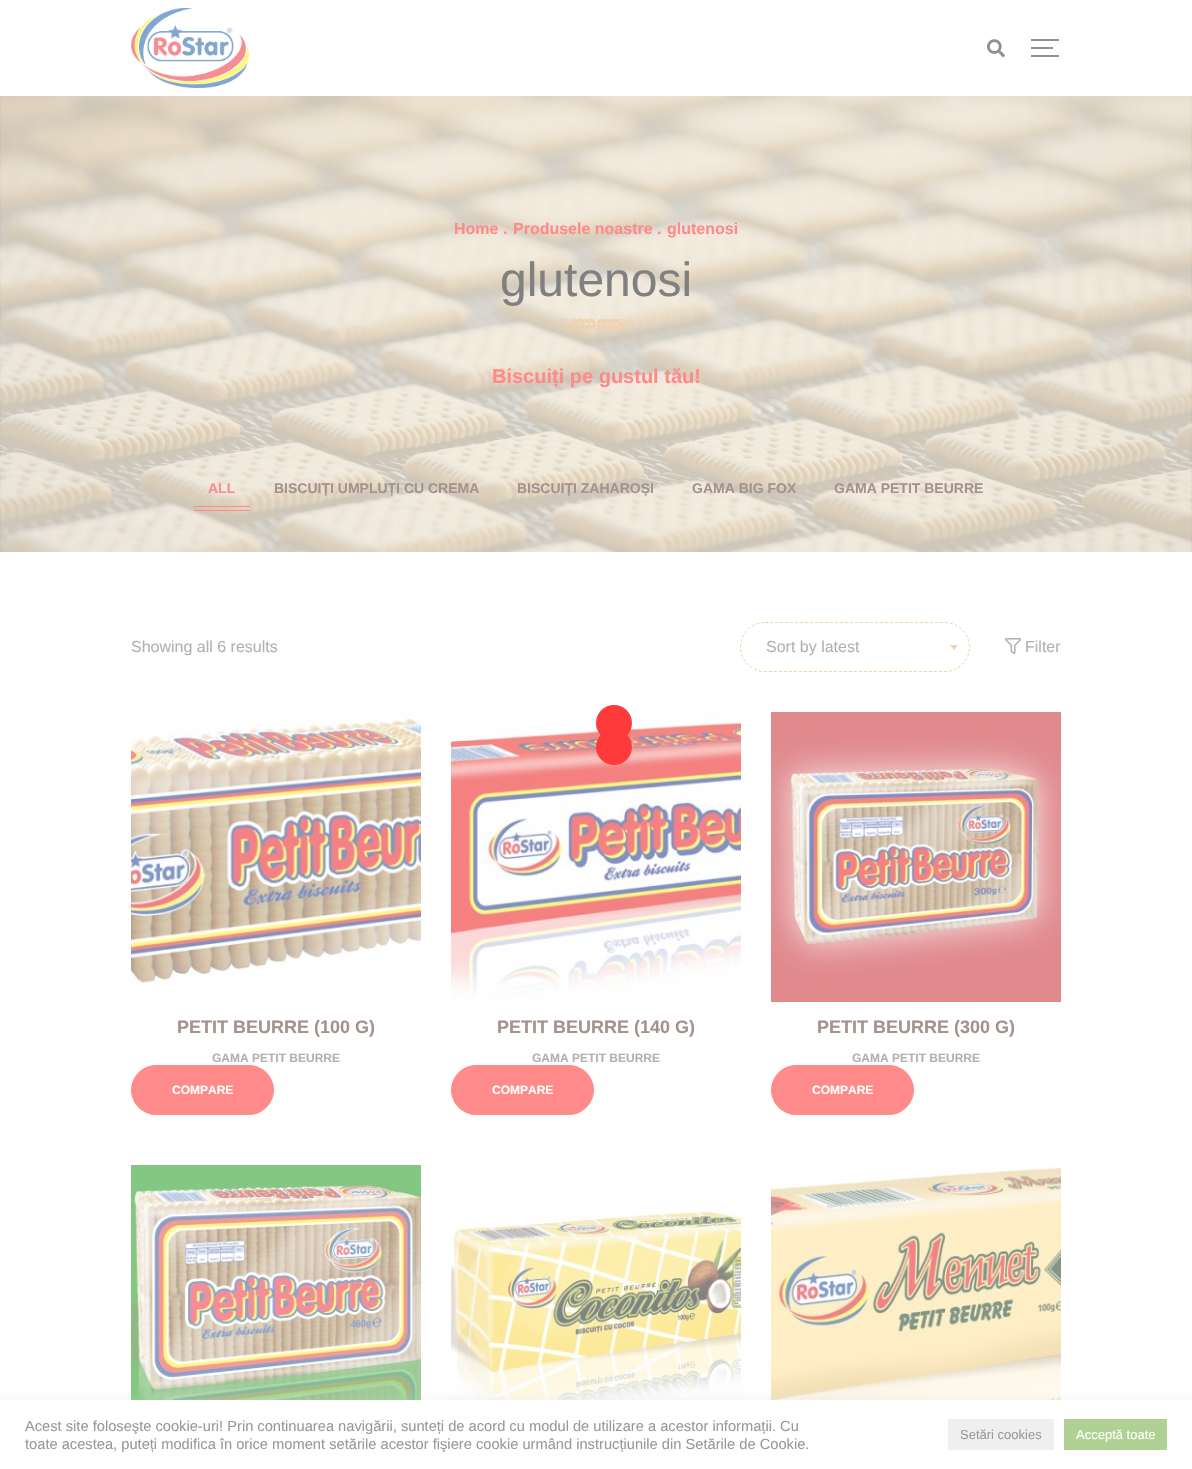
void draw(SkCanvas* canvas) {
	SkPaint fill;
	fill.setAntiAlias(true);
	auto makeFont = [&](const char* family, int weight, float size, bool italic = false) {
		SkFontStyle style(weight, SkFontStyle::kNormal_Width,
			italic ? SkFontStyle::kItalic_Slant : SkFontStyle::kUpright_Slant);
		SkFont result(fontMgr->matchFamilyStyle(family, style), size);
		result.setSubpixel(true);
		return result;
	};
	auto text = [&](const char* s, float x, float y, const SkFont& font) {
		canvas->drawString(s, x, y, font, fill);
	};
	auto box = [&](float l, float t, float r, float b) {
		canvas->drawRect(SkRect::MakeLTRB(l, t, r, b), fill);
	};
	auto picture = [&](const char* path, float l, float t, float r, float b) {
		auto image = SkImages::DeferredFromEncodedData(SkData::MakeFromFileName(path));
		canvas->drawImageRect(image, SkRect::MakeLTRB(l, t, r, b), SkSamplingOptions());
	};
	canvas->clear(0xFFFFFFFF);
	picture("image0.png", 131, 8, 249, 88);
	picture("image1.png", 987, 39, 1005, 58);
	fill.setColor(0xFF919191);
	box(1031, 47, 1053, 49);
	box(1031, 39, 1059, 41);
	box(1031, 55, 1059, 57);
	picture("image2.png", 0, 96, 1192, 552);
	picture("image3.png", 557, 318, 636, 330);
	fill.setColor(0xFFFE8A8A);
	box(194, 506, 250, 507);
	box(194, 510, 250, 511);
	fill.setStyle(SkPaint::kStroke_Style);
	fill.setStrokeWidth(1);
	fill.setColor(0xFFF0D2AF);
	fill.setPathEffect(SkDashPathEffect::Make({{3, 2}}, 0));
	canvas->drawPath(SkPathBuilder().moveTo(765, 622.5f).lineTo(945, 622.5f).cubicTo(958.5f, 622.5f, 969.5f, 633.5f, 969.5f, 647).cubicTo(969.5f, 660.5f, 958.5f, 671.5f, 945, 671.5f).lineTo(765, 671.5f).cubicTo(751.5f, 671.5f, 740.5f, 660.5f, 740.5f, 647).cubicTo(740.5f, 633.5f, 751.5f, 622.5f, 765, 622.5f).close().detach(), fill);
	fill.setPathEffect(nullptr);
	fill.setStyle(SkPaint::kFill_Style);
	canvas->drawPath(SkPathBuilder().moveTo(950, 645).lineTo(958, 645).lineTo(954, 650).close().detach(), fill);
	picture("image4.png", 1005, 638, 1021, 654);
	picture("image5.png", 131, 712, 421, 991);
	fill.setColor(0xFFFE8A8A);
	canvas->drawRoundRect(SkRect::MakeLTRB(131.5f, 1065.5f, 273.5f, 1114.5f), 24.5f, 24.5f, fill);
	fill.setStyle(SkPaint::kStroke_Style);
	canvas->drawRoundRect(SkRect::MakeLTRB(131.5f, 1065.5f, 273.5f, 1114.5f), 24.5f, 24.5f, fill);
	picture("image6.png", 451, 712, 741, 1002);
	fill.setStyle(SkPaint::kFill_Style);
	canvas->drawRoundRect(SkRect::MakeLTRB(451.5f, 1065.5f, 593.5f, 1114.5f), 24.5f, 24.5f, fill);
	fill.setStyle(SkPaint::kStroke_Style);
	canvas->drawRoundRect(SkRect::MakeLTRB(451.5f, 1065.5f, 593.5f, 1114.5f), 24.5f, 24.5f, fill);
	picture("image7.png", 771, 712, 1061, 1002);
	fill.setStyle(SkPaint::kFill_Style);
	canvas->drawRoundRect(SkRect::MakeLTRB(771.5f, 1065.5f, 913.5f, 1114.5f), 24.5f, 24.5f, fill);
	fill.setStyle(SkPaint::kStroke_Style);
	canvas->drawRoundRect(SkRect::MakeLTRB(771.5f, 1065.5f, 913.5f, 1114.5f), 24.5f, 24.5f, fill);
	picture("image8.png", 131, 1165, 421, 1400);
	picture("image9.png", 451, 1210, 741, 1400);
	picture("image10.png", 771, 1165, 1061, 1400);
	fill.setStyle(SkPaint::kFill_Style);
	fill.setColor(0xFFFF3A3A);
	canvas->drawCircle(614, 723, 18, fill);
	canvas->drawCircle(614, 747, 18, fill);
	fill.setColor(0x4DD6D5D5);
	fill.setMaskFilter(SkMaskFilter::MakeBlur(kNormal_SkBlurStyle, 5));
	canvas->drawRect(SkRect::MakeLTRB(0, 1399, 1192, 1468), fill);
	fill.setMaskFilter(nullptr);
	fill.setColor(0xFFFFFFFF);
	box(0, 1400, 1192, 1469);
	fill.setColor(0xFFEFEFF0);
	box(948, 1419, 1054, 1450);
	fill.setColor(0xFFB0D194);
	box(1064, 1419, 1167, 1450);
	auto font1 = makeFont("Liberation Sans", 700, 16);
	fill.setColor(0xFFFE8A8A);
	text("Home", 454, 234, font1);
	text(".", 503, 234, font1);
	text("Produsele noastre", 513, 234, font1);
	text(".", 657, 234, font1);
	text("glutenosi", 667, 234, font1);
	auto font2 = makeFont("Liberation Sans", 400, 48);
	fill.setColor(0xFF808080);
	text("glutenosi", 500, 296, font2);
	auto font3 = makeFont("Liberation Sans", 700, 20);
	fill.setColor(0xFFFE8A8A);
	text("Biscuiți pe gustul tău!", 492, 383, font3);
	auto font4 = makeFont("Liberation Sans", 700, 14);
	text("ALL", 208, 493, font4);
	fill.setColor(0xFFA5918D);
	text("BISCUIȚI UMPLUȚI CU CREMA", 274, 493, font4);
	text("BISCUIȚI ZAHAROȘI", 517, 493, font4);
	text("GAMA BIG FOX", 692, 493, font4);
	text("GAMA PETIT BEURRE", 834, 493, font4);
	auto font5 = makeFont("Liberation Sans", 400, 16);
	fill.setColor(0xFFB1B1B1);
	text("Showing all 6 results", 131, 652, font5);
	text("Sort by latest", 766, 652, font5);
	text("Filter", 1025, 652, font5);
	auto font6 = makeFont("Liberation Sans", 700, 18);
	fill.setColor(0xFFA5918D);
	text("PETIT BEURRE (100 G)", 177, 1033, font6);
	auto font7 = makeFont("Liberation Sans", 700, 12);
	fill.setColor(0xFFB1B1B1);
	text("GAMA PETIT BEURRE", 212, 1062, font7);
	fill.setColor(0xFFFFFFFF);
	text("COMPARE", 172, 1094, font7);
	fill.setColor(0xFFA5918D);
	text("PETIT BEURRE (140 G)", 497, 1033, font6);
	fill.setColor(0xFFB1B1B1);
	text("GAMA PETIT BEURRE", 532, 1062, font7);
	fill.setColor(0xFFFFFFFF);
	text("COMPARE", 492, 1094, font7);
	fill.setColor(0xFFA5918D);
	text("PETIT BEURRE (300 G)", 817, 1033, font6);
	fill.setColor(0xFFB1B1B1);
	text("GAMA PETIT BEURRE", 852, 1062, font7);
	fill.setColor(0xFFFFFFFF);
	text("COMPARE", 812, 1094, font7);
	auto font8 = makeFont("Liberation Sans", 400, 14.67f);
	fill.setColor(0xFF999999);
	text("Acest site foloseşte cookie-uri! Prin continuarea navigării, sunteți de acord cu modul de utilizare a acestor informații. Cu", 25, 1431, font8);
	text("toate acestea, puteți modifica în orice moment setările acestor fişiere cookie urmând instrucțiunile din Setările de Cookie.", 25, 1449, font8);
	auto font9 = makeFont("Liberation Sans", 400, 13);
	text("Setări cookies", 960, 1439, font9);
	fill.setColor(0xFFFFFFFF);
	text("Acceptă toate", 1076, 1439, font9);
}
